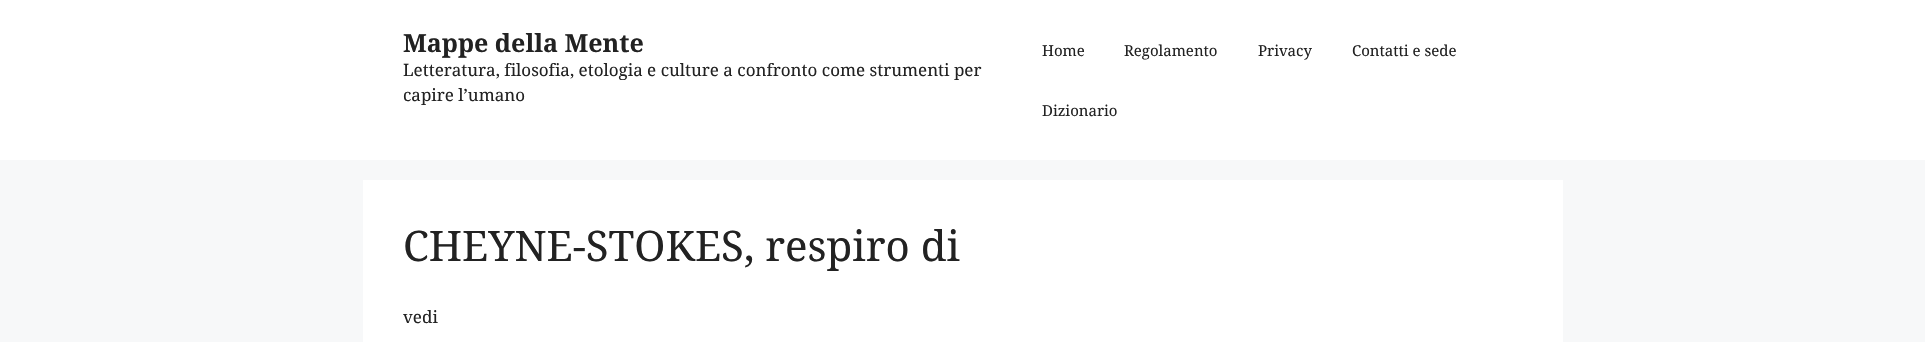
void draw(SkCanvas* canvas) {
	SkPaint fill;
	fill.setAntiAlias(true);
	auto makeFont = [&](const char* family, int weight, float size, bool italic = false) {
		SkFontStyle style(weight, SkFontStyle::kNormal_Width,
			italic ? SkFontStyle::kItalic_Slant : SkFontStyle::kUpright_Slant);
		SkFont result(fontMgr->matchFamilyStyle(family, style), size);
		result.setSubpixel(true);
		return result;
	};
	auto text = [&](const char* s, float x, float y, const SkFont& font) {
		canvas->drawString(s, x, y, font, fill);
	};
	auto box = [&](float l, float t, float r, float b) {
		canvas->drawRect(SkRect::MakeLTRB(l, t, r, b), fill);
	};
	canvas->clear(0xFFF7F8F9);
	fill.setColor(0xFFFFFFFF);
	box(0, 0, 1925, 160);
	box(363, 180, 1563, 342);
	auto font1 = makeFont("Noto Serif", 700, 25);
	fill.setColor(0xFF222222);
	text("Mappe della Mente", 403, 52, font1);
	auto font2 = makeFont("Noto Serif", 400, 17);
	text("Letteratura, filosofia, etologia e culture a confronto come strumenti per", 403, 76, font2);
	text("capire l’umano", 403, 101, font2);
	auto font3 = makeFont("Noto Serif", 400, 15);
	text("Home", 1042, 56, font3);
	text("Regolamento", 1124, 56, font3);
	text("Privacy", 1258, 56, font3);
	text("Contatti e sede", 1352, 56, font3);
	text("Dizionario", 1042, 116, font3);
	auto font4 = makeFont("Noto Serif", 400, 42);
	text("CHEYNE-STOKES, respiro di", 403, 261, font4);
	text("vedi", 403, 323, font2);
}
